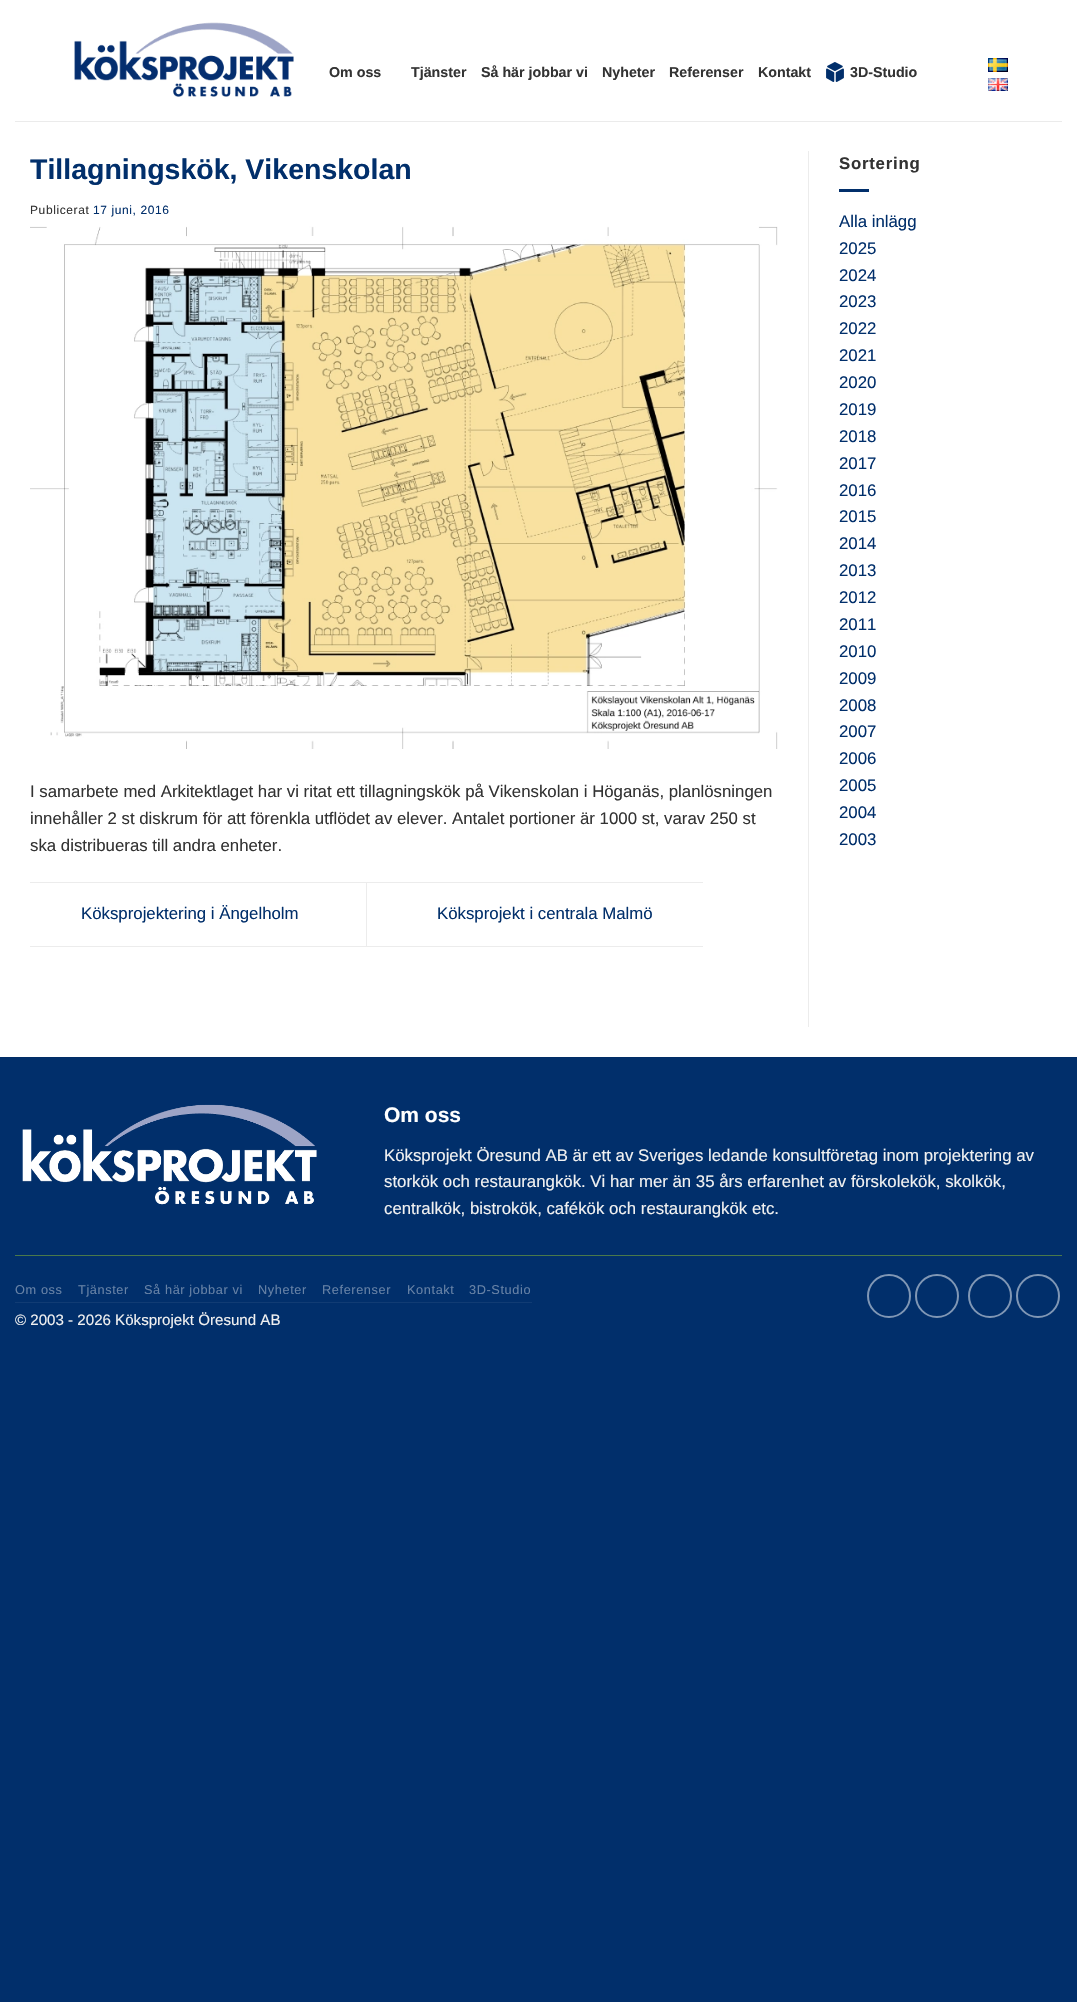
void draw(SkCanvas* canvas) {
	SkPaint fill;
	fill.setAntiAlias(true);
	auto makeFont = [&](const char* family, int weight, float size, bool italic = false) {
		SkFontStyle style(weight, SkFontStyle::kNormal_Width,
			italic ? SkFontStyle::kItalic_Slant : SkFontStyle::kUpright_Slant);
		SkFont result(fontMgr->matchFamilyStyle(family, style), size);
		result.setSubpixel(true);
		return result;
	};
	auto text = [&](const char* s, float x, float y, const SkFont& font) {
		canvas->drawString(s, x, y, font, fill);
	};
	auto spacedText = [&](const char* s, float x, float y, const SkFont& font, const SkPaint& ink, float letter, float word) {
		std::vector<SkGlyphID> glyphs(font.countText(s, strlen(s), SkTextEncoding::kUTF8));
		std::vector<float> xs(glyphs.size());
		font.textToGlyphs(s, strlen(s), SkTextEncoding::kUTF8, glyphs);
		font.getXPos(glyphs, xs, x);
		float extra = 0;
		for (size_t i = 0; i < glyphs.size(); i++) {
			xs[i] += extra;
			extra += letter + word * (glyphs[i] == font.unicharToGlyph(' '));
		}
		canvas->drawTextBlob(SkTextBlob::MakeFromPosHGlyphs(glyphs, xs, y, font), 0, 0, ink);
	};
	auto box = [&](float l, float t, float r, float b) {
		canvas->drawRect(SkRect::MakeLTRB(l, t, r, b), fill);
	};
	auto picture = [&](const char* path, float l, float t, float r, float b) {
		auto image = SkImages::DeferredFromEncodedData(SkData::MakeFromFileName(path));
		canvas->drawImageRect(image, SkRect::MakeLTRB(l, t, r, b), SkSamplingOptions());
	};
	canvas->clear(0xFF012F6B);
	fill.setColor(0xFFFFFFFF);
	box(0, 0, 1077, 1057);
	picture("image0.png", 74, 22, 294, 97);
	picture("image1.png", 826, 62, 844, 82);
	picture("image2.png", 988, 58, 1008, 72);
	picture("image3.png", 988, 78, 1008, 91);
	fill.setColor(0xFFEBEBEB);
	box(15, 121, 1062, 122);
	picture("image4.png", 30, 226, 778, 749);
	fill.setColor(0xFFECECEC);
	box(30, 882, 703, 883);
	box(30, 946, 703, 947);
	box(366, 883, 367, 946);
	box(808, 151, 809, 1027);
	fill.setColor(0xFF012F6B);
	box(839, 189, 869, 192);
	fill.setColor(0xFF012D66);
	box(0, 1057, 1077, 1058);
	picture("image5.png", 22, 1104, 317, 1205);
	fill.setColor(0xFF4A794A);
	box(15, 1255, 1062, 1256);
	fill.setColor(0xFF113C74);
	box(15, 1302, 532, 1303);
	fill.setStyle(SkPaint::kStroke_Style);
	fill.setStrokeWidth(2);
	fill.setColor(0xFF8097B5);
	canvas->drawCircle(889, 1296, 21, fill);
	canvas->drawCircle(937, 1296, 21, fill);
	canvas->drawCircle(990, 1296, 21, fill);
	canvas->drawCircle(1038, 1296, 21, fill);
	auto font1 = makeFont("Liberation Sans", 700, 14.25f);
	fill.setStyle(SkPaint::kFill_Style);
	fill.setColor(0xFF333333);
	text("Om oss", 329, 77, font1);
	text("Tjänster", 411, 77, font1);
	text("Så här jobbar vi", 481, 77, font1);
	text("Nyheter", 602, 77, font1);
	text("Referenser", 669, 77, font1);
	text("Kontakt", 758, 77, font1);
	text("3D-Studio", 850, 77, font1);
	auto font2 = makeFont("Liberation Sans", 700, 28.5f);
	fill.setColor(0xFF012F6B);
	text("Tillagningskök, Vikenskolan", 30, 179, font2);
	auto font3 = makeFont("Liberation Sans", 400, 12);
	fill.setColor(0xFF333333);
	spacedText("Publicerat", 30, 214, font3, fill, 0.6f, 0);
	fill.setColor(0xFF012F6B);
	spacedText("17 juni, 2016", 93, 214, font3, fill, 0.6f, 0);
	auto font4 = makeFont("Liberation Sans", 400, 16.8f);
	fill.setColor(0xFF333333);
	text("I samarbete med Arkitektlaget har vi ritat ett tillagningskök på Vikenskolan i Höganäs, planlösningen", 30, 797, font4);
	text("innehåller 2 st diskrum för att förenkla utflödet av elever. Antalet portioner är 1000 st, varav 250 st", 30, 824, font4);
	text("ska distribueras till andra enheter.", 30, 851, font4);
	fill.setColor(0xFF012F6B);
	text("Köksprojektering i Ängelholm", 81, 919, font4);
	text("Köksprojekt i centrala Malmö", 437, 919, font4);
	auto font5 = makeFont("Liberation Sans", 700, 16.8f);
	fill.setColor(0xFF333333);
	spacedText("Sortering", 839, 169, font5, fill, 0.75f, 0);
	fill.setColor(0xFF012F6B);
	text("Alla inlägg", 839, 227, font4);
	text("2025", 839, 254, font4);
	text("2024", 839, 281, font4);
	text("2023", 839, 307, font4);
	text("2022", 839, 334, font4);
	text("2021", 839, 361, font4);
	text("2020", 839, 388, font4);
	text("2019", 839, 415, font4);
	text("2018", 839, 442, font4);
	text("2017", 839, 469, font4);
	text("2016", 839, 496, font4);
	text("2015", 839, 522, font4);
	text("2014", 839, 549, font4);
	text("2013", 839, 576, font4);
	text("2012", 839, 603, font4);
	text("2011", 839, 630, font4);
	text("2010", 839, 657, font4);
	text("2009", 839, 684, font4);
	text("2008", 839, 711, font4);
	text("2007", 839, 737, font4);
	text("2006", 839, 764, font4);
	text("2005", 839, 791, font4);
	text("2004", 839, 818, font4);
	text("2003", 839, 845, font4);
	auto font6 = makeFont("Liberation Sans", 700, 21);
	fill.setColor(0xFFFFFFFF);
	text("Om oss", 384, 1122, font6);
	fill.setColor(0xFFF1F1F1);
	text("Köksprojekt Öresund AB är ett av Sveriges ledande konsultföretag inom projektering av", 384, 1161, font4);
	text("storkök och restaurangkök. Vi har mer än 35 års erfarenhet av förskolekök, skolkök,", 384, 1187, font4);
	text("centralkök, bistrokök, cafékök och restaurangkök etc.", 384, 1214, font4);
	auto font7 = makeFont("Liberation Sans", 400, 12.75f);
	fill.setColor(0xFF6782A6);
	spacedText("Om oss", 15, 1294, font7, fill, 0.6f, 0);
	spacedText("Tjänster", 78, 1294, font7, fill, 0.6f, 0);
	spacedText("Så här jobbar vi", 144, 1294, font7, fill, 0.6f, 0);
	spacedText("Nyheter", 258, 1294, font7, fill, 0.6f, 0);
	spacedText("Referenser", 322, 1294, font7, fill, 0.6f, 0);
	spacedText("Kontakt", 407, 1294, font7, fill, 0.6f, 0);
	spacedText("3D-Studio", 469, 1294, font7, fill, 0.6f, 0);
	auto font8 = makeFont("Liberation Sans", 400, 15.1f);
	fill.setColor(0xFFF1F1F1);
	text("© 2003 - 2026 Köksprojekt Öresund AB", 15, 1325, font8);
}
